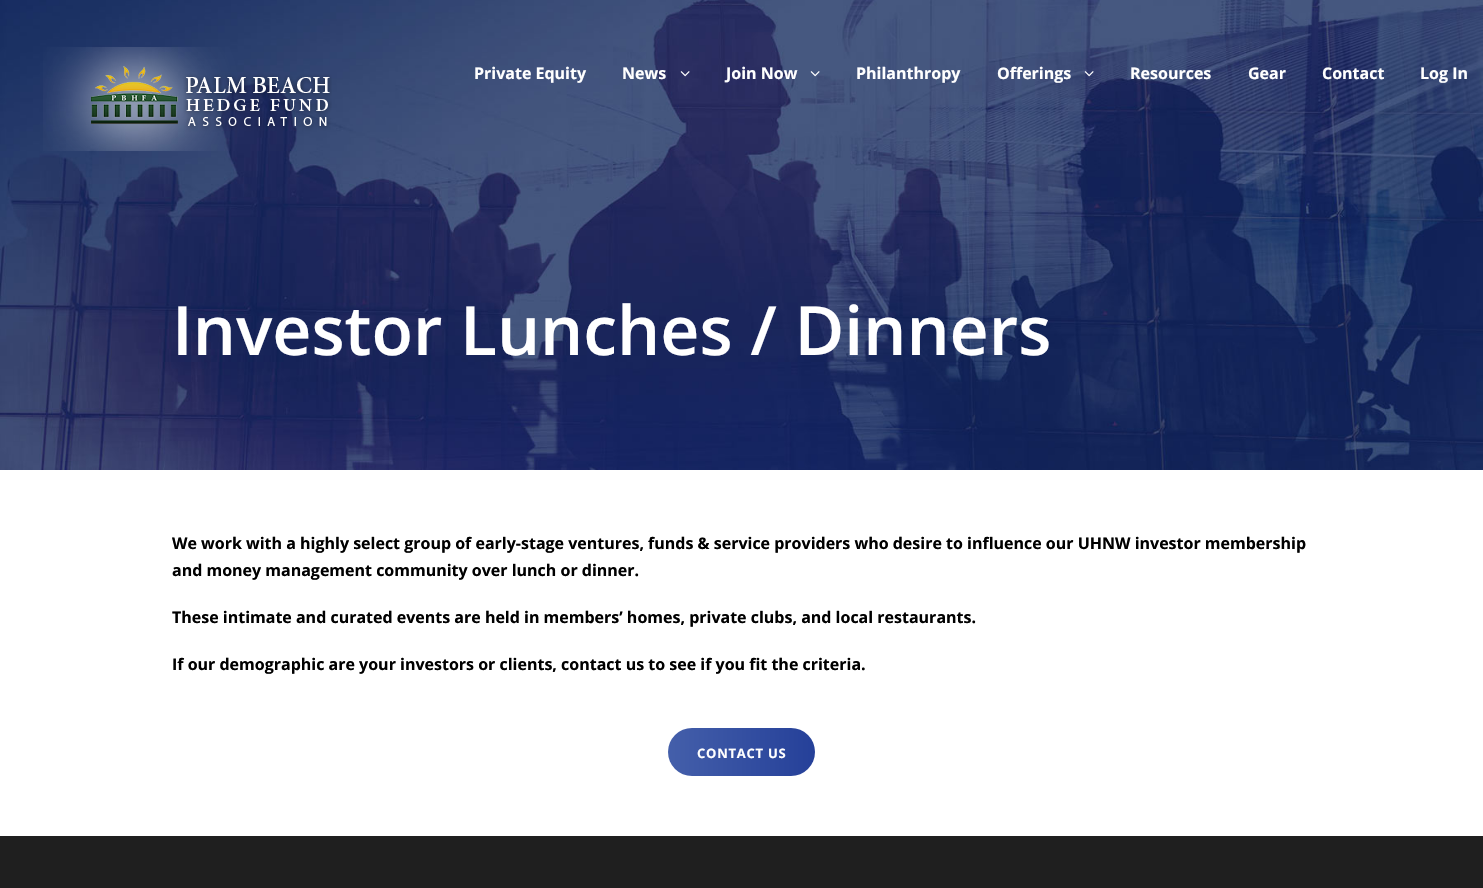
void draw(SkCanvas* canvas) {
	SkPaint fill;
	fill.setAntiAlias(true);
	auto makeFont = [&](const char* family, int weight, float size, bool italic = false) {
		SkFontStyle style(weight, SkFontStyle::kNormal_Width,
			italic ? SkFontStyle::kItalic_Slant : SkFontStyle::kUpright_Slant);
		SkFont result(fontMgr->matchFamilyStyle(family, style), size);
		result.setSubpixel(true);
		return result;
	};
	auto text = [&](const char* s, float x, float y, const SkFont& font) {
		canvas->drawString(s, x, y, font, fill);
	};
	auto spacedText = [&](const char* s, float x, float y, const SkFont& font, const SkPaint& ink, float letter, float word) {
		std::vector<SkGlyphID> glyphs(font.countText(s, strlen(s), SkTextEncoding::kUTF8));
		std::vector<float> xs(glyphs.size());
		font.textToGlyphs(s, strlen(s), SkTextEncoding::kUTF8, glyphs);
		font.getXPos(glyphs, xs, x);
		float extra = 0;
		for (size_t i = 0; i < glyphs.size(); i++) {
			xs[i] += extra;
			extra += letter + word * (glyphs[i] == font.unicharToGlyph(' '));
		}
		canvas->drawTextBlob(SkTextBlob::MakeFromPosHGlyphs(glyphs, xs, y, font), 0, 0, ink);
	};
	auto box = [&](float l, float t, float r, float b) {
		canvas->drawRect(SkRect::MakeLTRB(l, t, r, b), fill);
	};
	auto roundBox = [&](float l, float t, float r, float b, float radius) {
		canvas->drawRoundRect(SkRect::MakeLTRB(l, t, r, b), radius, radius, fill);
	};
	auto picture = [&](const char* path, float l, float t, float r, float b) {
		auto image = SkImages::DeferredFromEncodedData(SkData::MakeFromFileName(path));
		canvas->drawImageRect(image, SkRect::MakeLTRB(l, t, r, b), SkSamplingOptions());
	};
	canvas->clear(0xFFFFFFFF);
	picture("image4.png", 0, 0, 1483, 470);
	picture("image0.png", 43, 47, 332, 151);
	picture("image1.png", 680, 71, 690, 77);
	picture("image2.png", 810, 71, 820, 77);
	picture("image3.png", 1084, 71, 1094, 77);
	{
		const SkColor colors[] = {0xFF445FAA, 0xFF254099};
		const float stops[] = {0, 1};
		const SkPoint ends[] = {{668, 752}, {815, 752}};
		fill.setShader(SkGradientShader::MakeLinear(ends, colors, stops, 2, SkTileMode::kClamp));
		fill.setAlpha(255);
	}
	roundBox(668, 728, 815, 776, 24);
	fill.setShader(nullptr);
	fill.setColor(0xFF1F1F1F);
	box(0, 836, 1483, 888);
	auto font1 = makeFont("Open Sans", 700, 16);
	fill.setColor(0xFFFFFFFF);
	text("Private Equity", 474, 79, font1);
	text("News", 622, 79, font1);
	text("Join Now", 726, 79, font1);
	text("Philanthropy", 856, 79, font1);
	text("Offerings", 997, 79, font1);
	text("Resources", 1130, 79, font1);
	text("Gear", 1248, 79, font1);
	text("Contact", 1322, 79, font1);
	text("Log In", 1420, 79, font1);
	auto font2 = makeFont("Open Sans", 600, 68);
	text("Investor Lunches / Dinners", 172, 355, font2);
	fill.setColor(0xFF000000);
	text("We work with a highly select group of early-stage ventures, funds & service providers who desire to influence our UHNW investor membership", 172, 549, font1);
	text("and money management community over lunch or dinner.", 172, 576, font1);
	text("These intimate and curated events are held in members’ homes, private clubs, and local restaurants.", 172, 623, font1);
	text("If our demographic are your investors or clients, contact us to see if you fit the criteria.", 172, 670, font1);
	auto font3 = makeFont("Open Sans", 700, 13);
	fill.setColor(0xFFFFFFFF);
	spacedText("CONTACT US", 697, 758, font3, fill, 0.75f, 0);
}
